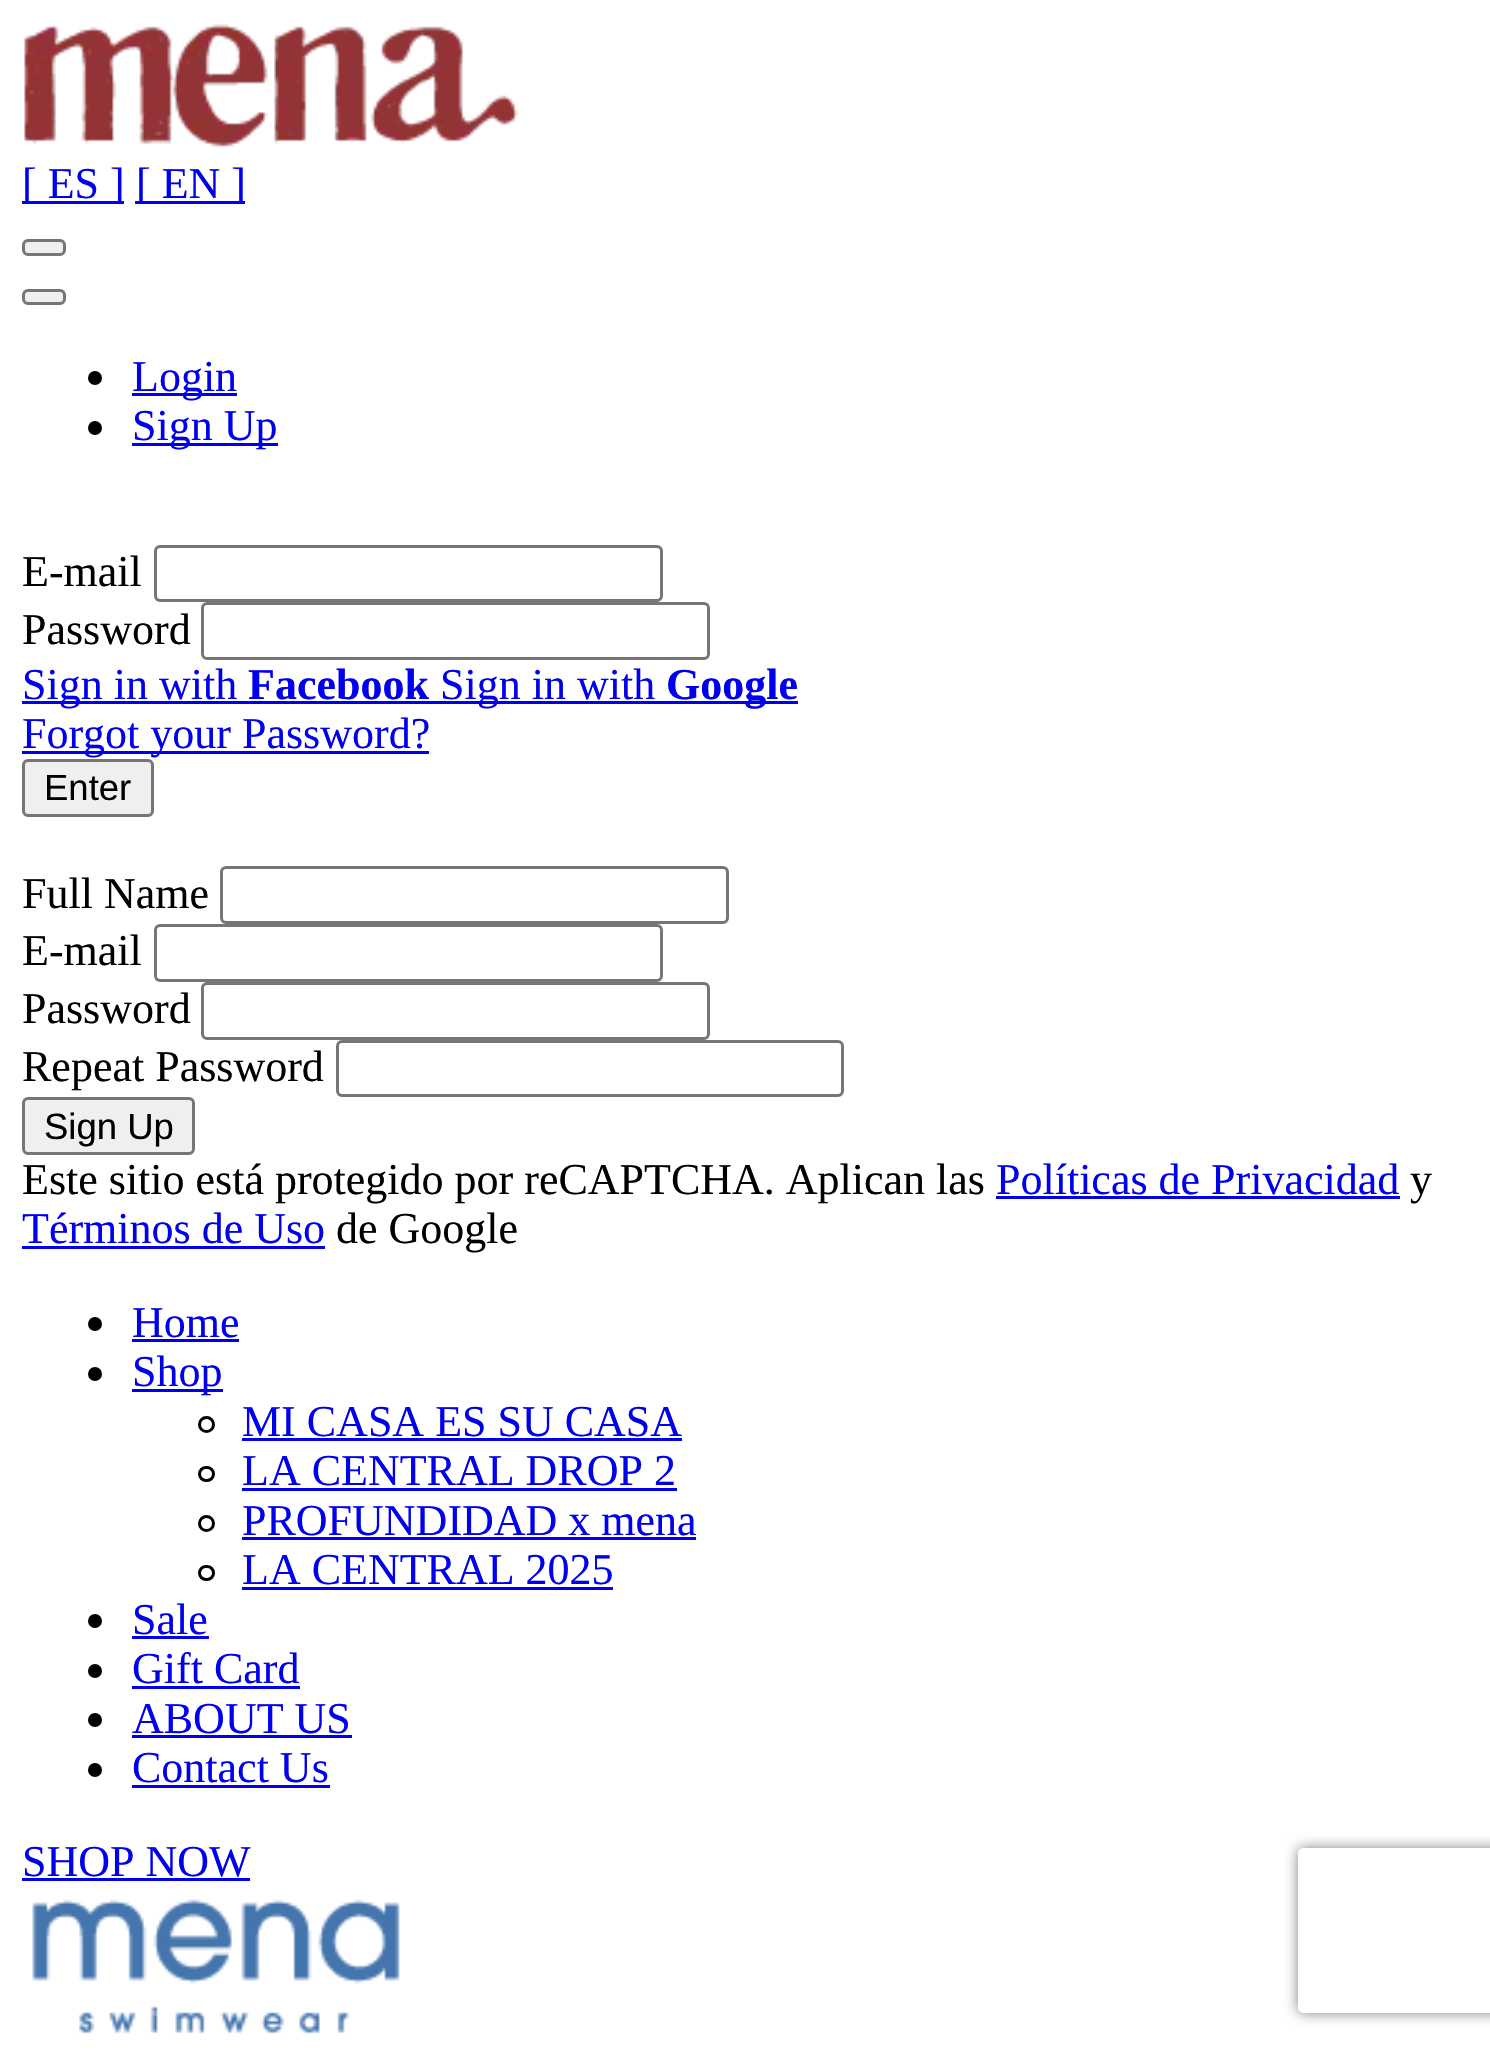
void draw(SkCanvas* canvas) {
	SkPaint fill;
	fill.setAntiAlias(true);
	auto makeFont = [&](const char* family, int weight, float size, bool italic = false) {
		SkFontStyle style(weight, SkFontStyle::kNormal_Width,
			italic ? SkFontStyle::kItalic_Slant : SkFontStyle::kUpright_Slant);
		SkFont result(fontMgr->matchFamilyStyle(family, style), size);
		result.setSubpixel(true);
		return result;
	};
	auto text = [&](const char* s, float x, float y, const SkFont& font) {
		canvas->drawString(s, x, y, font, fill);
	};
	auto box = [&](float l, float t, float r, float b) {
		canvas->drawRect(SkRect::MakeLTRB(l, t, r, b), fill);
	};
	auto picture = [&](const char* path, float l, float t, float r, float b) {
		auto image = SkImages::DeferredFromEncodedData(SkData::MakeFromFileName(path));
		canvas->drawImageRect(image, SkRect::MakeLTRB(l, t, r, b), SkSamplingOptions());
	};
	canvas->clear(0xFFFFFFFF);
	picture("image0.png", 24, 24, 518, 147);
	fill.setColor(0xFF0000EE);
	box(22, 201, 124, 204);
	box(135, 201, 245, 204);
	fill.setColor(0xFFEFEFEF);
	canvas->drawRoundRect(SkRect::MakeLTRB(23.5f, 240.5f, 64.5f, 254.5f), 4.5f, 4.5f, fill);
	fill.setStyle(SkPaint::kStroke_Style);
	fill.setStrokeWidth(3);
	fill.setColor(0xFF767676);
	canvas->drawRoundRect(SkRect::MakeLTRB(23.5f, 240.5f, 64.5f, 254.5f), 4.5f, 4.5f, fill);
	fill.setStyle(SkPaint::kFill_Style);
	fill.setColor(0xFFEFEFEF);
	canvas->drawRoundRect(SkRect::MakeLTRB(23.5f, 290.5f, 64.5f, 303.5f), 4.5f, 4.5f, fill);
	fill.setStyle(SkPaint::kStroke_Style);
	fill.setColor(0xFF767676);
	canvas->drawRoundRect(SkRect::MakeLTRB(23.5f, 290.5f, 64.5f, 303.5f), 4.5f, 4.5f, fill);
	fill.setStyle(SkPaint::kFill_Style);
	fill.setColor(0xFF000000);
	canvas->drawCircle(95, 378, 7, fill);
	fill.setColor(0xFF0000EE);
	box(132, 393, 237, 396);
	fill.setColor(0xFF000000);
	canvas->drawCircle(95, 428, 7, fill);
	fill.setColor(0xFF0000EE);
	box(132, 443, 278, 446);
	fill.setStyle(SkPaint::kStroke_Style);
	fill.setColor(0xFF767676);
	canvas->drawRoundRect(SkRect::MakeLTRB(155.5f, 546.5f, 661.5f, 600.5f), 4.5f, 4.5f, fill);
	canvas->drawRoundRect(SkRect::MakeLTRB(202.5f, 603.5f, 708.5f, 658.5f), 4.5f, 4.5f, fill);
	fill.setStyle(SkPaint::kFill_Style);
	fill.setColor(0xFF0000EE);
	box(22, 701, 798, 704);
	box(22, 751, 429, 754);
	fill.setColor(0xFFEFEFEF);
	canvas->drawRoundRect(SkRect::MakeLTRB(23.5f, 760.5f, 152.5f, 815.5f), 4.5f, 4.5f, fill);
	fill.setStyle(SkPaint::kStroke_Style);
	fill.setColor(0xFF767676);
	canvas->drawRoundRect(SkRect::MakeLTRB(23.5f, 760.5f, 152.5f, 815.5f), 4.5f, 4.5f, fill);
	canvas->drawRoundRect(SkRect::MakeLTRB(221.5f, 867.5f, 727.5f, 922.5f), 4.5f, 4.5f, fill);
	canvas->drawRoundRect(SkRect::MakeLTRB(155.5f, 925.5f, 661.5f, 980.5f), 4.5f, 4.5f, fill);
	canvas->drawRoundRect(SkRect::MakeLTRB(202.5f, 983.5f, 708.5f, 1038.5f), 4.5f, 4.5f, fill);
	canvas->drawRoundRect(SkRect::MakeLTRB(337.5f, 1041.5f, 842.5f, 1095.5f), 4.5f, 4.5f, fill);
	fill.setStyle(SkPaint::kFill_Style);
	fill.setColor(0xFFEFEFEF);
	canvas->drawRoundRect(SkRect::MakeLTRB(23.5f, 1098.5f, 193.5f, 1153.5f), 4.5f, 4.5f, fill);
	fill.setStyle(SkPaint::kStroke_Style);
	fill.setColor(0xFF767676);
	canvas->drawRoundRect(SkRect::MakeLTRB(23.5f, 1098.5f, 193.5f, 1153.5f), 4.5f, 4.5f, fill);
	fill.setStyle(SkPaint::kFill_Style);
	fill.setColor(0xFF0000EE);
	box(996, 1196, 1400, 1199);
	box(22, 1246, 325, 1249);
	fill.setColor(0xFF000000);
	canvas->drawCircle(95, 1324, 7, fill);
	fill.setColor(0xFF0000EE);
	box(132, 1339, 239, 1342);
	fill.setColor(0xFF000000);
	canvas->drawCircle(95, 1374, 7, fill);
	fill.setColor(0xFF0000EE);
	box(132, 1389, 223, 1392);
	fill.setStyle(SkPaint::kStroke_Style);
	fill.setColor(0xFF000000);
	canvas->drawCircle(206.5f, 1424.5f, 7, fill);
	fill.setStyle(SkPaint::kFill_Style);
	fill.setColor(0xFF0000EE);
	box(242, 1438, 682, 1441);
	fill.setStyle(SkPaint::kStroke_Style);
	fill.setColor(0xFF000000);
	canvas->drawRoundRect(SkRect::MakeLTRB(199.5f, 1467.5f, 213.5f, 1480.5f), 6.5f, 6.5f, fill);
	fill.setStyle(SkPaint::kFill_Style);
	fill.setColor(0xFF0000EE);
	box(242, 1488, 677, 1491);
	fill.setStyle(SkPaint::kStroke_Style);
	fill.setColor(0xFF000000);
	canvas->drawCircle(206.5f, 1523.5f, 7, fill);
	fill.setStyle(SkPaint::kFill_Style);
	fill.setColor(0xFF0000EE);
	box(242, 1537, 696, 1540);
	fill.setStyle(SkPaint::kStroke_Style);
	fill.setColor(0xFF000000);
	canvas->drawRoundRect(SkRect::MakeLTRB(199.5f, 1566.5f, 213.5f, 1579.5f), 6.5f, 6.5f, fill);
	fill.setStyle(SkPaint::kFill_Style);
	fill.setColor(0xFF0000EE);
	box(242, 1587, 613, 1590);
	fill.setColor(0xFF000000);
	canvas->drawCircle(95, 1621, 7, fill);
	fill.setColor(0xFF0000EE);
	box(132, 1636, 209, 1639);
	fill.setColor(0xFF000000);
	canvas->drawCircle(95, 1671, 7, fill);
	fill.setColor(0xFF0000EE);
	box(132, 1686, 300, 1689);
	fill.setColor(0xFF000000);
	canvas->drawCircle(95, 1720, 7, fill);
	fill.setColor(0xFF0000EE);
	box(132, 1735, 352, 1738);
	fill.setColor(0xFF000000);
	canvas->drawCircle(95, 1770, 7, fill);
	fill.setColor(0xFF0000EE);
	box(132, 1785, 330, 1788);
	box(22, 1878, 250, 1881);
	canvas->save();
	canvas->clipPath(SkPathBuilder(SkPathFillType::kEvenOdd).moveTo(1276, 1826).lineTo(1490, 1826).lineTo(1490, 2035).lineTo(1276, 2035).close().moveTo(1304, 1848).lineTo(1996, 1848).cubicTo(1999.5f, 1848, 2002, 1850.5f, 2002, 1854).lineTo(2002, 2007).cubicTo(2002, 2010.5f, 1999.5f, 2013, 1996, 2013).lineTo(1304, 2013).cubicTo(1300.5f, 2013, 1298, 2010.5f, 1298, 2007).lineTo(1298, 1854).cubicTo(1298, 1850.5f, 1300.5f, 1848, 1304, 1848).close().detach(), true);
	fill.setColor(0xFF808080);
	fill.setMaskFilter(SkMaskFilter::MakeBlur(kNormal_SkBlurStyle, 7));
	canvas->drawRoundRect(SkRect::MakeLTRB(1298, 1848, 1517, 2013), 6, 6, fill);
	fill.setMaskFilter(nullptr);
	canvas->restore();
	picture("image1.png", 32, 1899, 400, 2034);
	auto font1 = makeFont("Liberation Serif", 400, 44);
	fill.setColor(0xFF0000EE);
	text("[ ES ]", 22, 198, font1);
	text("[ EN ]", 136, 198, font1);
	text("Login", 132, 391, font1);
	text("Sign Up", 132, 440, font1);
	fill.setColor(0xFF000000);
	text("E-mail", 22, 586, font1);
	text("Password", 22, 644, font1);
	fill.setColor(0xFF0000EE);
	text("Sign in with", 22, 699, font1);
	auto font2 = makeFont("Liberation Serif", 700, 44);
	text("Facebook", 248, 699, font2);
	text("Sign in with", 440, 699, font1);
	text("Google", 666, 699, font2);
	text("Forgot your Password?", 22, 748, font1);
	auto font3 = makeFont("Liberation Sans", 400, 36.5f);
	fill.setColor(0xFF000000);
	text("Enter", 44, 800, font3);
	text("Full Name", 22, 908, font1);
	text("E-mail", 22, 965, font1);
	text("Password", 22, 1023, font1);
	text("Repeat Password", 22, 1081, font1);
	text("Sign Up", 44, 1139, font3);
	text("Este sitio está protegido por reCAPTCHA. Aplican las", 22, 1194, font1);
	fill.setColor(0xFF0000EE);
	text("Políticas de Privacidad", 996, 1194, font1);
	fill.setColor(0xFF000000);
	text("y", 1410, 1194, font1);
	fill.setColor(0xFF0000EE);
	text("Términos de Uso", 22, 1243, font1);
	fill.setColor(0xFF000000);
	text("de Google", 336, 1243, font1);
	fill.setColor(0xFF0000EE);
	text("Home", 132, 1337, font1);
	text("Shop", 132, 1386, font1);
	text("MI CASA ES SU CASA", 242, 1436, font1);
	text("LA CENTRAL DROP 2", 242, 1485, font1);
	text("PROFUNDIDAD x mena", 242, 1535, font1);
	text("LA CENTRAL 2025", 242, 1584, font1);
	text("Sale", 132, 1634, font1);
	text("Gift Card", 132, 1683, font1);
	text("ABOUT US", 132, 1733, font1);
	text("Contact Us", 132, 1782, font1);
	text("SHOP NOW", 22, 1876, font1);
}
